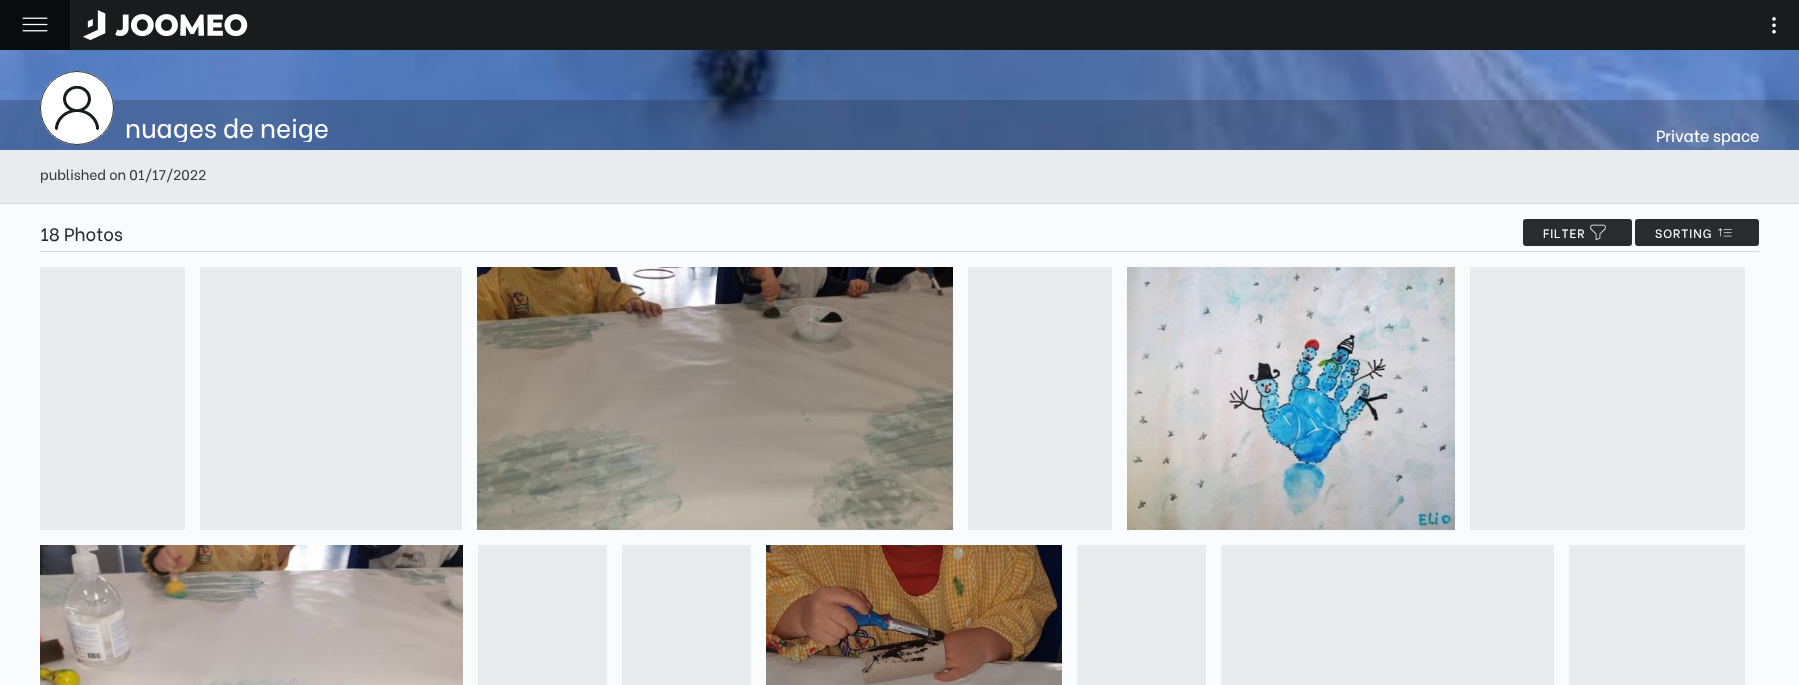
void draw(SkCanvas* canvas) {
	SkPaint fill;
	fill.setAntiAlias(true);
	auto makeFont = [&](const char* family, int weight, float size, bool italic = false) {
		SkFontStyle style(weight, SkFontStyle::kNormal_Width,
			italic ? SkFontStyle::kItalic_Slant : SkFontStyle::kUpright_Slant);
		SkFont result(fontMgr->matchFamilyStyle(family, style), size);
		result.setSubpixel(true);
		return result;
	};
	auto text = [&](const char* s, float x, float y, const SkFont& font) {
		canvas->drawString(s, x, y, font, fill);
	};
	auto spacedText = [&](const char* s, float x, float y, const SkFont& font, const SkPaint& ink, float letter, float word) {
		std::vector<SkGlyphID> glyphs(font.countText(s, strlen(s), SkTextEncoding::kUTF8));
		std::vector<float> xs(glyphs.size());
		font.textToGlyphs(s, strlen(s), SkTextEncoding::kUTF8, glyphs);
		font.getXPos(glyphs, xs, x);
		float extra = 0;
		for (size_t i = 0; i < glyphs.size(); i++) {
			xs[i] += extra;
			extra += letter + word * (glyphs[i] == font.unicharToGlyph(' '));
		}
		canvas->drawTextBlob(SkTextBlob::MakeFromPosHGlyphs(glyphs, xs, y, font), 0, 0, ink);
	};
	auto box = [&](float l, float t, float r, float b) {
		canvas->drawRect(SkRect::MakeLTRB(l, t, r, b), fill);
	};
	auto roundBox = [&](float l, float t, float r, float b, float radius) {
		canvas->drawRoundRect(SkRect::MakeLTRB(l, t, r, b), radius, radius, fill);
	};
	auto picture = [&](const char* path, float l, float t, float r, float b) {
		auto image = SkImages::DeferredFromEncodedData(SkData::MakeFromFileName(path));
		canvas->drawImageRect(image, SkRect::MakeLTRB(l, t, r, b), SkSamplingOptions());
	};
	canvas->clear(0xFF181C1D);
	fill.setColor(0xFF080C0D);
	box(0, 0, 70, 50);
	picture("image0.png", 22, 17, 48, 32);
	picture("image1.png", 83, 10, 248, 40);
	picture("image2.png", 1772, 17, 1776, 34);
	picture("image3.png", 0, 50, 1799, 150);
	fill.setColor(0x33111111);
	box(0, 100, 1799, 150);
	fill.setColor(0xFFFFFFFF);
	canvas->drawCircle(77, 108, 37, fill);
	picture("image4.png", 55, 86, 99, 130);
	fill.setStyle(SkPaint::kStroke_Style);
	fill.setStrokeWidth(1);
	fill.setColor(0xFF323232);
	canvas->drawCircle(77, 108, 36.5f, fill);
	fill.setStyle(SkPaint::kFill_Style);
	fill.setColor(0xFFE8ECED);
	box(0, 150, 1799, 203);
	fill.setColor(0xFFD7D7D7);
	box(0, 203, 1799, 204);
	fill.setColor(0xFFF8FCFD);
	box(0, 204, 1799, 685);
	fill.setColor(0xFF282C2D);
	roundBox(1523, 219, 1632, 246, 3);
	picture("image5.png", 1590, 224, 1606, 240);
	roundBox(1635, 219, 1759, 246, 3);
	picture("image6.png", 1718, 228, 1732, 237);
	fill.setColor(0xFFD7D7D7);
	box(40, 251, 1759, 252);
	fill.setColor(0xFFE8ECED);
	box(40, 267, 185, 530);
	box(200, 267, 462, 530);
	picture("image7.png", 477, 267, 953, 530);
	box(968, 267, 1112, 530);
	picture("image8.png", 1127, 267, 1455, 530);
	box(1470, 267, 1745, 530);
	picture("image9.png", 40, 545, 463, 685);
	box(478, 545, 607, 685);
	box(622, 545, 751, 685);
	picture("image10.png", 766, 545, 1062, 685);
	box(1077, 545, 1206, 685);
	box(1221, 545, 1554, 685);
	box(1569, 545, 1745, 685);
	canvas->save();
	canvas->clipRect(SkRect::MakeLTRB(125, 110, 898, 142));
	auto font1 = makeFont("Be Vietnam", 400, 26);
	fill.setColor(0xFFFFFFFF);
	text("nuages de neige", 125, 138, font1);
	canvas->restore();
	auto font2 = makeFont("Be Vietnam", 400, 16);
	text("Private space", 1656, 142, font2);
	auto font3 = makeFont("Be Vietnam", 400, 14);
	fill.setColor(0xFF383C3D);
	text("published on 01/17/2022", 40, 180, font3);
	auto font4 = makeFont("Be Vietnam", 400, 18);
	fill.setColor(0xFF282C2D);
	text("18 Photos", 40, 241, font4);
	auto font5 = makeFont("Be Vietnam", 400, 12);
	fill.setColor(0xFFFFFFFF);
	spacedText("FILTER", 1543, 238, font5, fill, 1, 0);
	spacedText("SORTING", 1655, 238, font5, fill, 1, 0);
}
